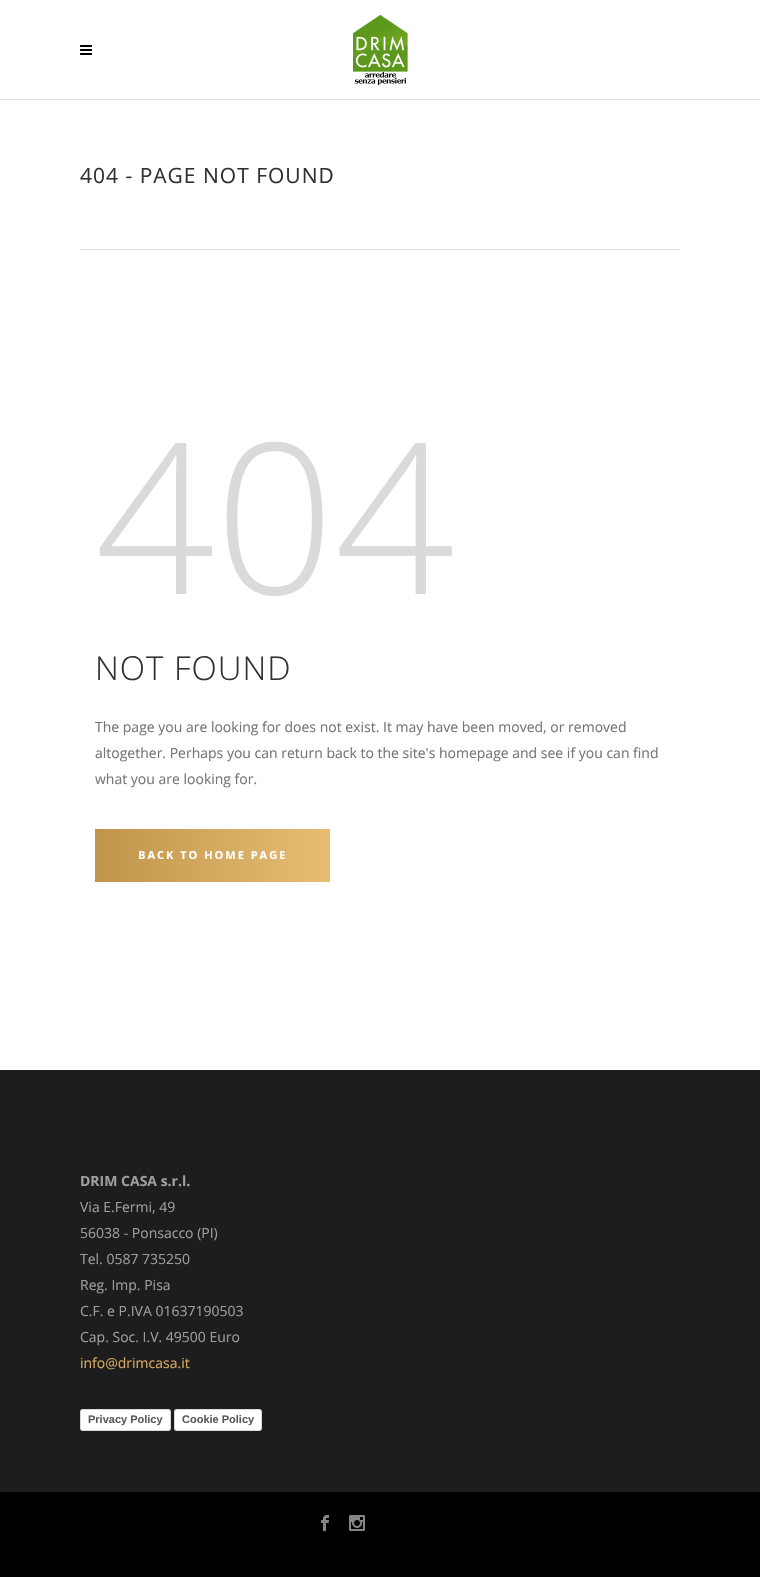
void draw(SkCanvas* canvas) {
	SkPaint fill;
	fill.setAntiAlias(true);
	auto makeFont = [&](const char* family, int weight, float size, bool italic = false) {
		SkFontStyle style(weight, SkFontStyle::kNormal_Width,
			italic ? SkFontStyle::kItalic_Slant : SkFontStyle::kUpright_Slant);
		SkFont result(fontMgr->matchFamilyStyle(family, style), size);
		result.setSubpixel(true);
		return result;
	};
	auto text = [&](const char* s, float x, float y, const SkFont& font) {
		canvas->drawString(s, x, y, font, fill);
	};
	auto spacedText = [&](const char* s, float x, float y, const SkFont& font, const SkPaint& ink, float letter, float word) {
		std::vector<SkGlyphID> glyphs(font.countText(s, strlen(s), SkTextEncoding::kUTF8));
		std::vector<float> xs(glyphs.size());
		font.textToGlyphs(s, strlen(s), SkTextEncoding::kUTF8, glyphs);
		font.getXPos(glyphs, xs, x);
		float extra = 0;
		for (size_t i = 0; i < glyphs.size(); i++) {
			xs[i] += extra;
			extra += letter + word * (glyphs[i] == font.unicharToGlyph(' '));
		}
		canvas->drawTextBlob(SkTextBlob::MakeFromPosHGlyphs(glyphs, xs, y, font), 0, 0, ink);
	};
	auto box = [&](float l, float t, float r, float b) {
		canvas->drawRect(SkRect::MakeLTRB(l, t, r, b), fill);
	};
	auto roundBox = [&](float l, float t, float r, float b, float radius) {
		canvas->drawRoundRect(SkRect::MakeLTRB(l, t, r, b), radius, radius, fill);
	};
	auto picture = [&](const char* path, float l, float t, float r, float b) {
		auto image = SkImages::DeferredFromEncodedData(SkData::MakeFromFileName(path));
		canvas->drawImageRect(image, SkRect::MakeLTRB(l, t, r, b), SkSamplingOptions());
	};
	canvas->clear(0xFFFFFFFF);
	fill.setColor(0xFFE0E0E0);
	box(0, 99, 760, 100);
	picture("image0.png", 80, 45, 92, 55);
	picture("image1.png", 353, 15, 408, 85);
	box(80, 249, 680, 250);
	{
		const SkColor colors[] = {0xFFC0954B, 0xFFE7BD74};
		const float stops[] = {0, 1};
		const SkPoint ends[] = {{95, 856}, {330, 856}};
		fill.setShader(SkGradientShader::MakeLinear(ends, colors, stops, 2, SkTileMode::kClamp));
		fill.setAlpha(255);
	}
	box(95, 829, 330, 882);
	fill.setShader(nullptr);
	fill.setColor(0xFF1D1D1D);
	box(0, 1070, 760, 1492);
	fill.setColor(0xFFFFFFFF);
	roundBox(80, 1409, 171, 1431, 3);
	fill.setStyle(SkPaint::kStroke_Style);
	fill.setStrokeWidth(1);
	fill.setColor(0x26000000);
	canvas->drawRoundRect(SkRect::MakeLTRB(80.5f, 1409.5f, 170.5f, 1430.5f), 2.5f, 2.5f, fill);
	fill.setStyle(SkPaint::kFill_Style);
	fill.setColor(0xFFFFFFFF);
	roundBox(174, 1409, 262, 1431, 3);
	fill.setStyle(SkPaint::kStroke_Style);
	fill.setColor(0x26000000);
	canvas->drawRoundRect(SkRect::MakeLTRB(174.5f, 1409.5f, 261.5f, 1430.5f), 2.5f, 2.5f, fill);
	fill.setStyle(SkPaint::kFill_Style);
	fill.setColor(0xFF000000);
	box(0, 1492, 760, 1577);
	picture("image2.png", 321, 1515, 329, 1531);
	picture("image3.png", 349, 1515, 365, 1531);
	auto font1 = makeFont("Open Sans", 400, 21);
	fill.setColor(0xFF313131);
	spacedText("404 - PAGE NOT FOUND", 80, 183, font1, fill, 1, 0);
	auto font2 = makeFont("Open Sans", 300, 210);
	fill.setColor(0xFFDADADA);
	text("404", 95, 594, font2);
	auto font3 = makeFont("Open Sans", 300, 33);
	fill.setColor(0xFF313131);
	spacedText("NOT FOUND", 95, 680, font3, fill, 1, 0);
	auto font4 = makeFont("Open Sans", 400, 14);
	fill.setColor(0xFF757575);
	text("The page you are looking for does not exist. It may have been moved, or removed", 95, 732, font4);
	text("altogether. Perhaps you can return back to the site's homepage and see if you can find", 95, 758, font4);
	text("what you are looking for.", 95, 784, font4);
	auto font5 = makeFont("Open Sans", 700, 11);
	fill.setColor(0xFFFFFFFF);
	spacedText("BACK TO HOME PAGE", 138, 859, font5, fill, 2, 0);
	auto font6 = makeFont("Open Sans", 700, 14);
	fill.setColor(0xFF9E9E9E);
	text("DRIM CASA s.r.l.", 80, 1186, font6);
	text("Via E.Fermi, 49", 80, 1212, font4);
	text("56038 - Ponsacco (PI)", 80, 1238, font4);
	text("Tel. 0587 735250", 80, 1264, font4);
	text("Reg. Imp. Pisa", 80, 1290, font4);
	text("C.F. e P.IVA 01637190503", 80, 1316, font4);
	text("Cap. Soc. I.V. 49500 Euro", 80, 1342, font4);
	fill.setColor(0xFFD6AB60);
	text("info@drimcasa.it", 80, 1368, font4);
	auto font7 = makeFont("Liberation Sans", 700, 11);
	fill.setColor(0xFF595959);
	text("Privacy Policy", 88, 1423, font7);
	text("Cookie Policy", 182, 1423, font7);
}
